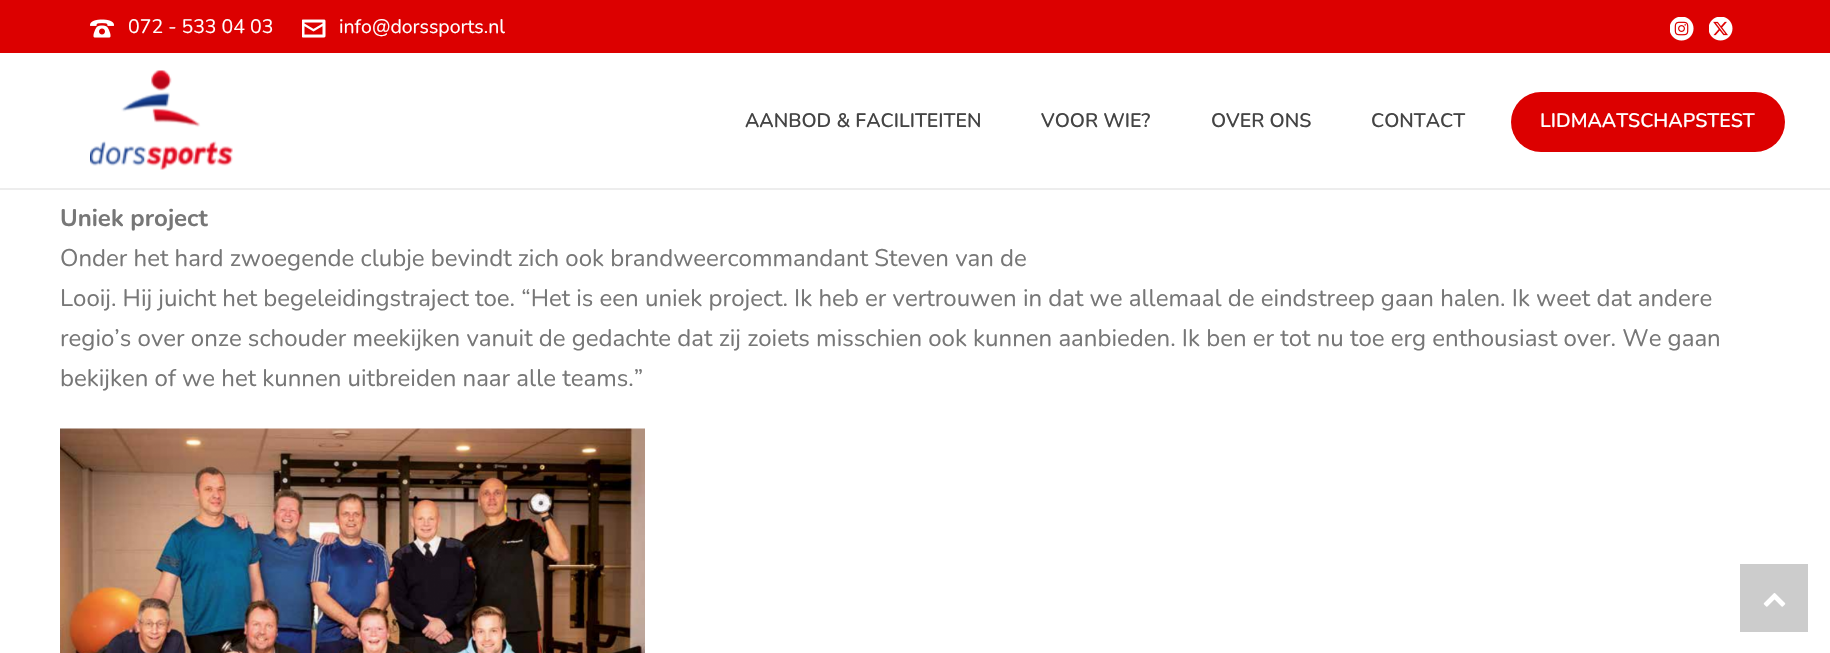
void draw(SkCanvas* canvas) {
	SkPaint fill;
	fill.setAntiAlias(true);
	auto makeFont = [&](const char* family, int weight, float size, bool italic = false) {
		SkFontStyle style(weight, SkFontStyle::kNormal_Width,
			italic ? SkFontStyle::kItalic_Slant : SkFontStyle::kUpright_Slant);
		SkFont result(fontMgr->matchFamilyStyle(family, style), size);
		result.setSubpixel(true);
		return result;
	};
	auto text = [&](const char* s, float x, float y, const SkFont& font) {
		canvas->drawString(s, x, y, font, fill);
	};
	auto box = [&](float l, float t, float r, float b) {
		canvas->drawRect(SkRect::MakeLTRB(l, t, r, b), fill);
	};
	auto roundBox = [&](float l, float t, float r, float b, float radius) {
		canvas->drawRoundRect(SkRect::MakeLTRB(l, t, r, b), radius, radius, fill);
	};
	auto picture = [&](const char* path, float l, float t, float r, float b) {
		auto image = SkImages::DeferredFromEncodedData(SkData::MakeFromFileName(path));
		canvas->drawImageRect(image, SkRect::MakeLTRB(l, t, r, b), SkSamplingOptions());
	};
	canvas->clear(0xFFFFFFFF);
	fill.setColor(0xFFDC0000);
	box(0, 0, 1830, 53);
	picture("image0.png", 90, 19, 114, 38);
	picture("image1.png", 302, 19, 326, 38);
	picture("image2.png", 1670, 17, 1694, 41);
	picture("image3.png", 1709, 17, 1733, 41);
	fill.setColor(0xFFEDEDED);
	box(0, 188, 1830, 190);
	picture("image4.png", 90, 70, 233, 170);
	fill.setColor(0xFFDC0000);
	roundBox(1511, 92, 1785, 152, 30);
	picture("image5.png", 60, 428, 645, 653);
	fill.setColor(0xFFCCCCCC);
	box(1740, 564, 1808, 632);
	picture("image6.png", 1763, 593, 1786, 607);
	auto font1 = makeFont("Nunito", 400, 19.5f);
	fill.setColor(0xFFFFFFFF);
	text("072 - 533 04 03", 128, 33, font1);
	text("info@dorssports.nl", 339, 33, font1);
	auto font2 = makeFont("Nunito", 600, 19.5f);
	fill.setColor(0xFF444444);
	text("AANBOD & FACILITEITEN", 745, 127, font2);
	text("VOOR WIE?", 1041, 127, font2);
	text("OVER ONS", 1211, 127, font2);
	text("CONTACT", 1371, 127, font2);
	fill.setColor(0xFFFFFFFF);
	text("LIDMAATSCHAPSTEST", 1540, 127, font2);
	auto font3 = makeFont("Nunito", 700, 24);
	fill.setColor(0xFF777777);
	text("Uniek project", 60, 226, font3);
	auto font4 = makeFont("Nunito", 400, 24);
	text("Onder het hard zwoegende clubje bevindt zich ook brandweercommandant Steven van de", 60, 266, font4);
	text("Looij. Hij juicht het begeleidingstraject toe. “Het is een uniek project. Ik heb er vertrouwen in dat we allemaal de eindstreep gaan halen. Ik weet dat andere", 60, 306, font4);
	text("regio’s over onze schouder meekijken vanuit de gedachte dat zij zoiets misschien ook kunnen aanbieden. Ik ben er tot nu toe erg enthousiast over. We gaan", 60, 346, font4);
	text("bekijken of we het kunnen uitbreiden naar alle teams.”", 60, 386, font4);
}
